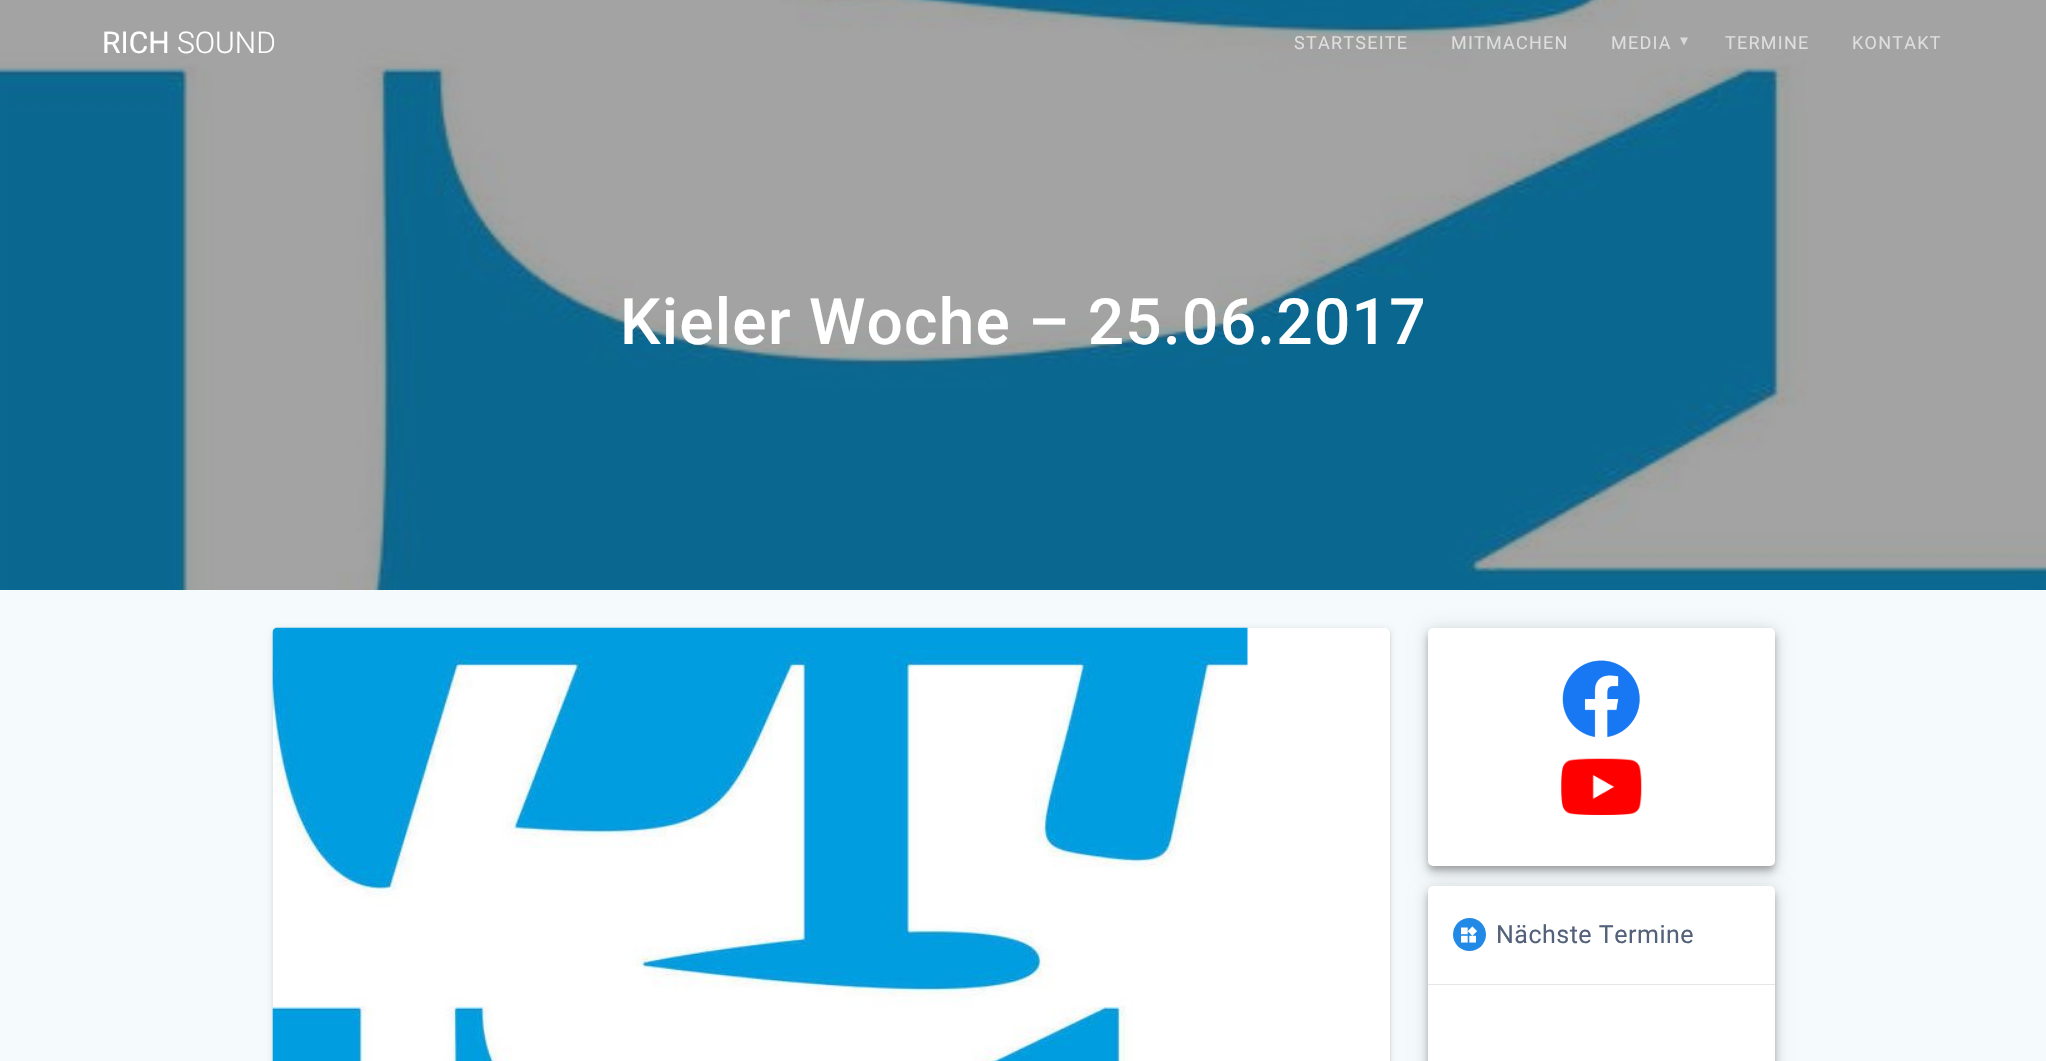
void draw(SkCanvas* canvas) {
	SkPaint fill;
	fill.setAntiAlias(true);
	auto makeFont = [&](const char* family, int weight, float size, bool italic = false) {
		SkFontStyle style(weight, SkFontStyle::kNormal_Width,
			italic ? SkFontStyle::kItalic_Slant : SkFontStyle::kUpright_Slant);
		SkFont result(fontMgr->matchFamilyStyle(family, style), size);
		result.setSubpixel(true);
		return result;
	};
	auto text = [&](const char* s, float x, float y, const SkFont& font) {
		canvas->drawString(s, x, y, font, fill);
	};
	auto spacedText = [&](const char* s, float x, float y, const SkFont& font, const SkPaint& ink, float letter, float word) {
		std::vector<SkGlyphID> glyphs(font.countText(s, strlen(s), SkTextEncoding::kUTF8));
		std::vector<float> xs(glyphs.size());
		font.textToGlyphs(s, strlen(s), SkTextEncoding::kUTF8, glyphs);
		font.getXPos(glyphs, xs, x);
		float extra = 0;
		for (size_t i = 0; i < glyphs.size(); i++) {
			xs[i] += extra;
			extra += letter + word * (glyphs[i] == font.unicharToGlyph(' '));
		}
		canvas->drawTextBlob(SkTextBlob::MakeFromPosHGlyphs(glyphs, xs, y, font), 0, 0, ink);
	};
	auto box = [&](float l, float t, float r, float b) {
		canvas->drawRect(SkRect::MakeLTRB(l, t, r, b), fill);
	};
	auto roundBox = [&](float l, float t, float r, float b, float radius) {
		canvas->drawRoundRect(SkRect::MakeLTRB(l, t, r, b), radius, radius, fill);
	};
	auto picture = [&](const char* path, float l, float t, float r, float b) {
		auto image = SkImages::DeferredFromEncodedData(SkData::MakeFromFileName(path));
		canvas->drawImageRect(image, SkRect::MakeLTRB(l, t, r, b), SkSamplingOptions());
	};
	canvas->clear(0xFFFFFFFF);
	picture("image0.png", 0, 0, 2046, 590);
	fill.setColor(0xFFD9D9D9);
	canvas->drawPath(SkPathBuilder().moveTo(1680, 37.5f).lineTo(1684, 45.5f).lineTo(1688, 37.5f).close().detach(), fill);
	fill.setColor(0xFFF5FAFD);
	box(0, 590, 2046, 1061);
	fill.setColor(0x1F000000);
	fill.setMaskFilter(SkMaskFilter::MakeBlur(kNormal_SkBlurStyle, 3));
	canvas->drawRoundRect(SkRect::MakeLTRB(273, 629, 1390, 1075), 5, 5, fill);
	fill.setMaskFilter(nullptr);
	fill.setColor(0x24000000);
	fill.setMaskFilter(SkMaskFilter::MakeBlur(kNormal_SkBlurStyle, 1));
	canvas->drawRoundRect(SkRect::MakeLTRB(273, 630, 1390, 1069), 5, 5, fill);
	fill.setMaskFilter(nullptr);
	fill.setColor(0xFFFFFFFF);
	roundBox(273, 628, 1390, 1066, 5);
	picture("image1.png", 272, 627, 1248, 1061);
	fill.setColor(0x1F000000);
	fill.setMaskFilter(SkMaskFilter::MakeBlur(kNormal_SkBlurStyle, 9));
	canvas->drawRoundRect(SkRect::MakeLTRB(1428, 629, 1775, 868), 5, 5, fill);
	fill.setMaskFilter(nullptr);
	fill.setColor(0x24000000);
	fill.setMaskFilter(SkMaskFilter::MakeBlur(kNormal_SkBlurStyle, 5));
	canvas->drawRoundRect(SkRect::MakeLTRB(1428, 634, 1775, 873), 5, 5, fill);
	fill.setMaskFilter(nullptr);
	fill.setColor(0x33000000);
	fill.setMaskFilter(SkMaskFilter::MakeBlur(kNormal_SkBlurStyle, 3));
	canvas->drawRoundRect(SkRect::MakeLTRB(1429, 633, 1774, 869), 4, 4, fill);
	fill.setMaskFilter(nullptr);
	fill.setColor(0xFFFFFFFF);
	roundBox(1428, 628, 1775, 866, 5);
	picture("image2.png", 1562, 660, 1640, 737);
	picture("image3.png", 1561, 758, 1642, 815);
	fill.setColor(0x1F000000);
	fill.setMaskFilter(SkMaskFilter::MakeBlur(kNormal_SkBlurStyle, 9));
	canvas->drawRoundRect(SkRect::MakeLTRB(1428, 888, 1775, 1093), 5, 5, fill);
	fill.setMaskFilter(nullptr);
	fill.setColor(0x24000000);
	fill.setMaskFilter(SkMaskFilter::MakeBlur(kNormal_SkBlurStyle, 5));
	canvas->drawRoundRect(SkRect::MakeLTRB(1428, 893, 1775, 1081), 5, 5, fill);
	fill.setMaskFilter(nullptr);
	fill.setColor(0x33000000);
	fill.setMaskFilter(SkMaskFilter::MakeBlur(kNormal_SkBlurStyle, 3));
	canvas->drawRoundRect(SkRect::MakeLTRB(1429, 891, 1774, 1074), 4, 4, fill);
	fill.setMaskFilter(nullptr);
	fill.setColor(0xFFFFFFFF);
	roundBox(1428, 886, 1775, 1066, 5);
	fill.setColor(0xFFE6E6E6);
	box(1428, 984, 1775, 985);
	fill.setColor(0xFF228AE6);
	canvas->drawCircle(1469.5f, 934.5f, 16.5f, fill);
	picture("image4.png", 1461, 926, 1477, 943);
	auto font1 = makeFont("Roboto", 400, 30);
	fill.setColor(0xFFFFFFFF);
	text("RICH", 102, 53, font1);
	auto font2 = makeFont("Roboto", 300, 30);
	text("SOUND", 177, 53, font2);
	auto font3 = makeFont("Roboto", 400, 18);
	fill.setColor(0xFFDEDEDE);
	spacedText("STARTSEITE", 1294, 49, font3, fill, 1.25f, 0);
	spacedText("MITMACHEN", 1451, 49, font3, fill, 1.25f, 0);
	spacedText("MEDIA", 1611, 49, font3, fill, 1.25f, 0);
	spacedText("TERMINE", 1725, 49, font3, fill, 1.25f, 0);
	spacedText("KONTAKT", 1852, 49, font3, fill, 1.25f, 0);
	auto font4 = makeFont("Roboto", 500, 64);
	fill.setColor(0xFFFFFFFF);
	spacedText("Kieler Woche – 25.06.2017", 620, 344, font4, fill, 1.25f, 0);
	auto font5 = makeFont("Roboto", 400, 25);
	fill.setColor(0xFF54617A);
	spacedText("Nächste Termine", 1496, 943, font5, fill, 0.5f, 0);
}
